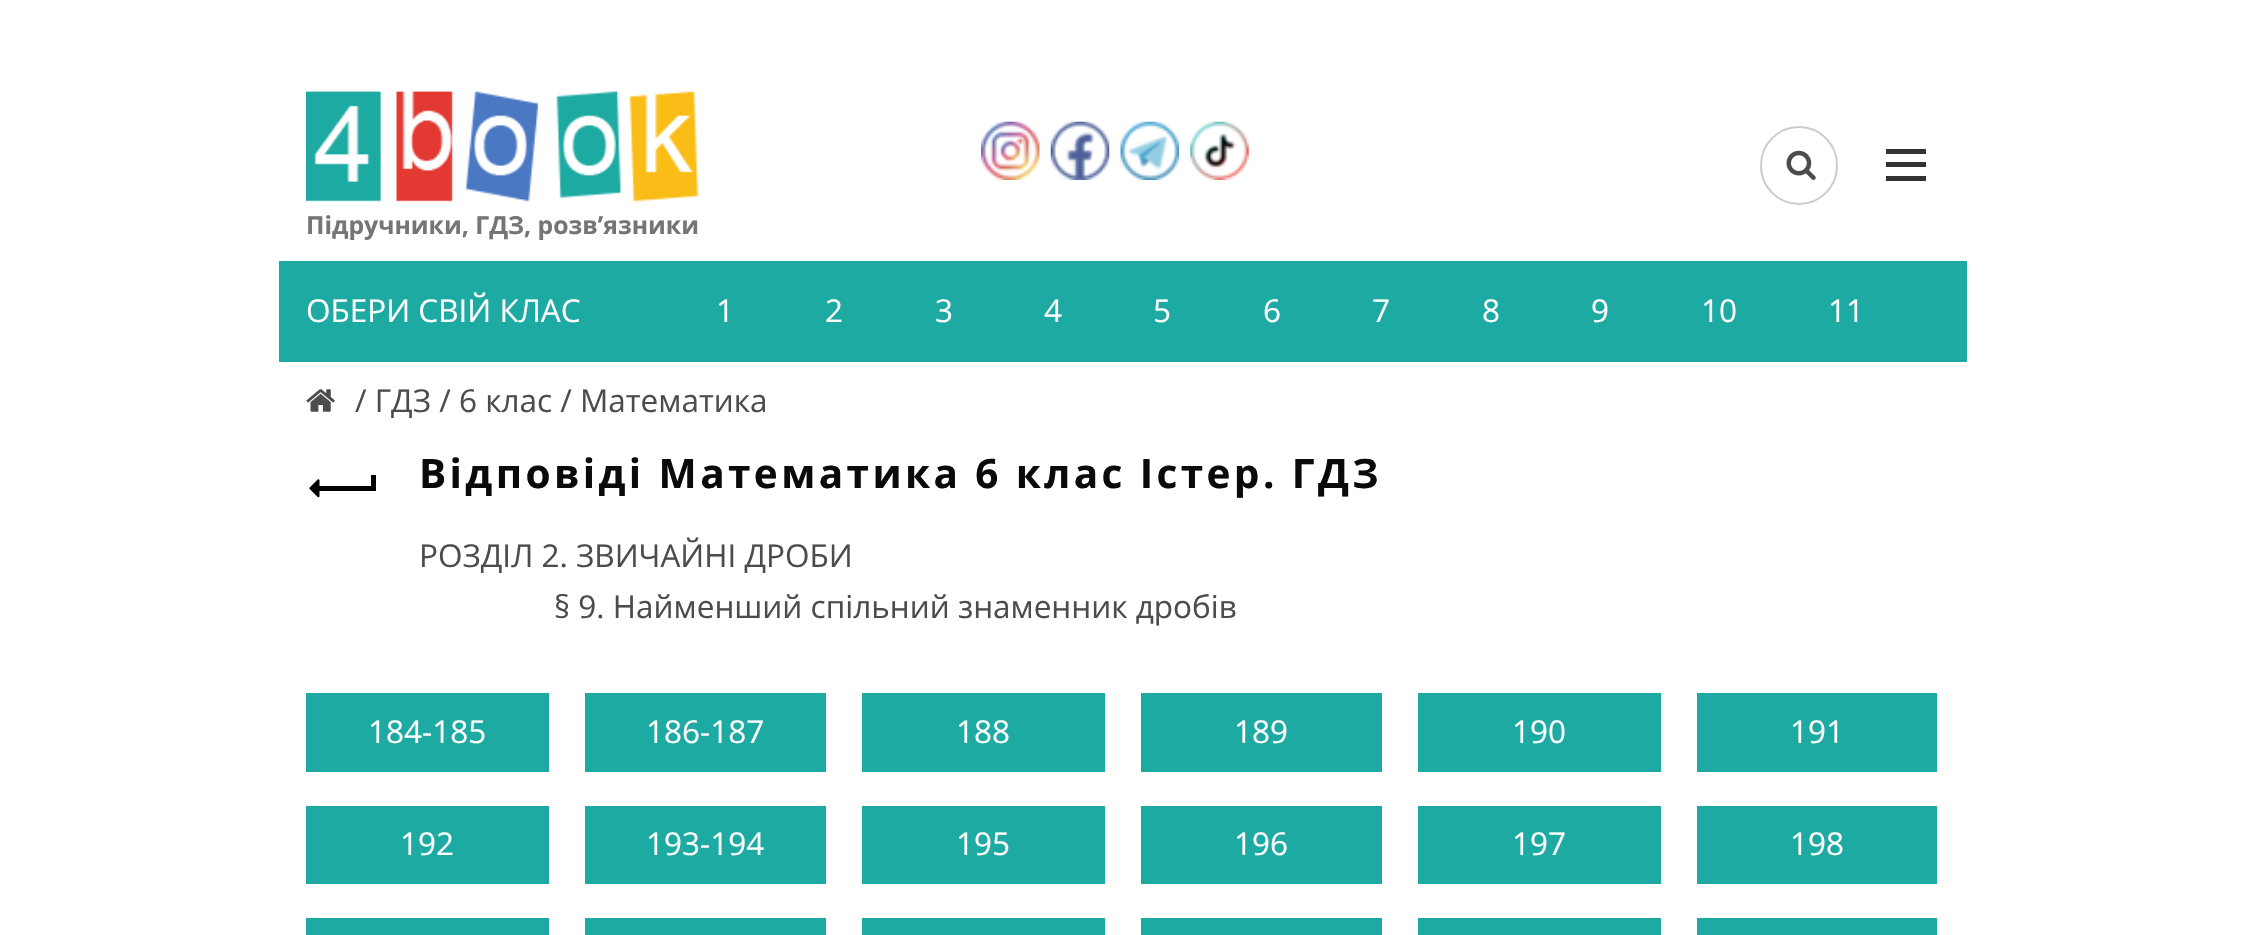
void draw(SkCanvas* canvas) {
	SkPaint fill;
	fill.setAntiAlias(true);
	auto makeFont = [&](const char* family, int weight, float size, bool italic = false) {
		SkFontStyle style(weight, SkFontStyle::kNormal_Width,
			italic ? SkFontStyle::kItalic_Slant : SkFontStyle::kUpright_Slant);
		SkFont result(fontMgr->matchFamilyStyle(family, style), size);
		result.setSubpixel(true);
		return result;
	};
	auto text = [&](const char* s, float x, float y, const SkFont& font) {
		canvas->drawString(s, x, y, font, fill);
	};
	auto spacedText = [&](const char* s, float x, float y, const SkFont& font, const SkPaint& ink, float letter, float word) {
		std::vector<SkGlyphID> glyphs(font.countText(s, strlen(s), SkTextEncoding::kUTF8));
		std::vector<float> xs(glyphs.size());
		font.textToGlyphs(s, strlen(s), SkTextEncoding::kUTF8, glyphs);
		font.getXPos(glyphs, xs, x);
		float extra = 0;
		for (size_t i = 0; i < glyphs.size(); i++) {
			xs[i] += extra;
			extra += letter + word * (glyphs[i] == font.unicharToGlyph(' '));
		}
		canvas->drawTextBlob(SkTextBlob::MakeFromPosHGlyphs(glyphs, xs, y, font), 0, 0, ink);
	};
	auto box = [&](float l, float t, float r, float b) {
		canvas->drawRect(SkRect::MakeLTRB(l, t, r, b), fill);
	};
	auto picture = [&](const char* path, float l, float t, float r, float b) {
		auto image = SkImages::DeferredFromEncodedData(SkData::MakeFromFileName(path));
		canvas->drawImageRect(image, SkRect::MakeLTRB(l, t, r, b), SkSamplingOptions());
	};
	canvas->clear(0xFFFFFFFF);
	picture("image0.png", 981, 121, 1040, 180);
	picture("image1.png", 1050, 121, 1110, 180);
	picture("image2.png", 1120, 121, 1179, 180);
	picture("image3.png", 1190, 121, 1249, 180);
	picture("image4.png", 1786, 150, 1816, 180);
	fill.setStyle(SkPaint::kStroke_Style);
	fill.setStrokeWidth(2);
	fill.setColor(0xFFCCCCCC);
	canvas->drawRoundRect(SkRect::MakeLTRB(1761, 127, 1837, 204), 38, 38, fill);
	fill.setStyle(SkPaint::kFill_Style);
	fill.setColor(0xFF333333);
	box(1886, 162, 1926, 167);
	box(1886, 149, 1926, 154);
	box(1886, 176, 1926, 181);
	picture("image5.png", 306, 91, 699, 202);
	fill.setColor(0xFF1DAAA3);
	box(279, 261, 1967, 362);
	picture("image6.png", 306, 389, 335, 412);
	fill.setColor(0xFF000000);
	box(317, 486, 374, 491);
	picture("image7.png", 309, 479, 320, 498);
	box(371, 475, 376, 491);
	fill.setColor(0xFF1DAAA3);
	box(306, 693, 549, 772);
	box(585, 693, 826, 772);
	box(862, 693, 1105, 772);
	box(1141, 693, 1382, 772);
	box(1418, 693, 1661, 772);
	box(1697, 693, 1937, 772);
	box(306, 806, 549, 884);
	box(585, 806, 826, 884);
	box(862, 806, 1105, 884);
	box(1141, 806, 1382, 884);
	box(1418, 806, 1661, 884);
	box(1697, 806, 1937, 884);
	box(306, 918, 549, 935);
	box(585, 918, 826, 935);
	box(862, 918, 1105, 935);
	box(1141, 918, 1382, 935);
	box(1418, 918, 1661, 935);
	box(1697, 918, 1937, 935);
	auto font1 = makeFont("Open Sans", 700, 24.75f);
	fill.setColor(0xFF767474);
	text("Підручники, ГДЗ, розв’язники", 306, 234, font1);
	auto font2 = makeFont("Open Sans", 400, 31.5f);
	fill.setColor(0xFFFFFFFF);
	text("ОБЕРИ СВІЙ КЛАС", 306, 322, font2);
	text("1", 716, 322, font2);
	text("2", 825, 322, font2);
	text("3", 935, 322, font2);
	text("4", 1044, 322, font2);
	text("5", 1153, 322, font2);
	text("6", 1263, 322, font2);
	text("7", 1372, 322, font2);
	text("8", 1482, 322, font2);
	text("9", 1591, 322, font2);
	text("10", 1701, 322, font2);
	text("11", 1828, 322, font2);
	fill.setColor(0xFF4C4C4C);
	text("/ ГДЗ / 6 клас / Математика", 355, 412, font2);
	auto font3 = makeFont("Open Sans", 700, 40.5f);
	fill.setColor(0xFF0A0A0A);
	spacedText("Відповіді Математика 6 клас Істер. ГДЗ", 419, 488, font3, fill, 3.4f, 0);
	fill.setColor(0xFF4C4C4C);
	text("РОЗДІЛ 2. ЗВИЧАЙНІ ДРОБИ", 419, 567, font2);
	text("§ 9. Найменший спільний знаменник дробів", 554, 618, font2);
	fill.setColor(0xFFFFFFFF);
	text("184-185", 368, 743, font2);
	text("186-187", 646, 743, font2);
	text("188", 956, 743, font2);
	text("189", 1234, 743, font2);
	text("190", 1512, 743, font2);
	text("191", 1790, 743, font2);
	text("192", 400, 855, font2);
	text("193-194", 646, 855, font2);
	text("195", 956, 855, font2);
	text("196", 1234, 855, font2);
	text("197", 1512, 855, font2);
	text("198", 1790, 855, font2);
}
